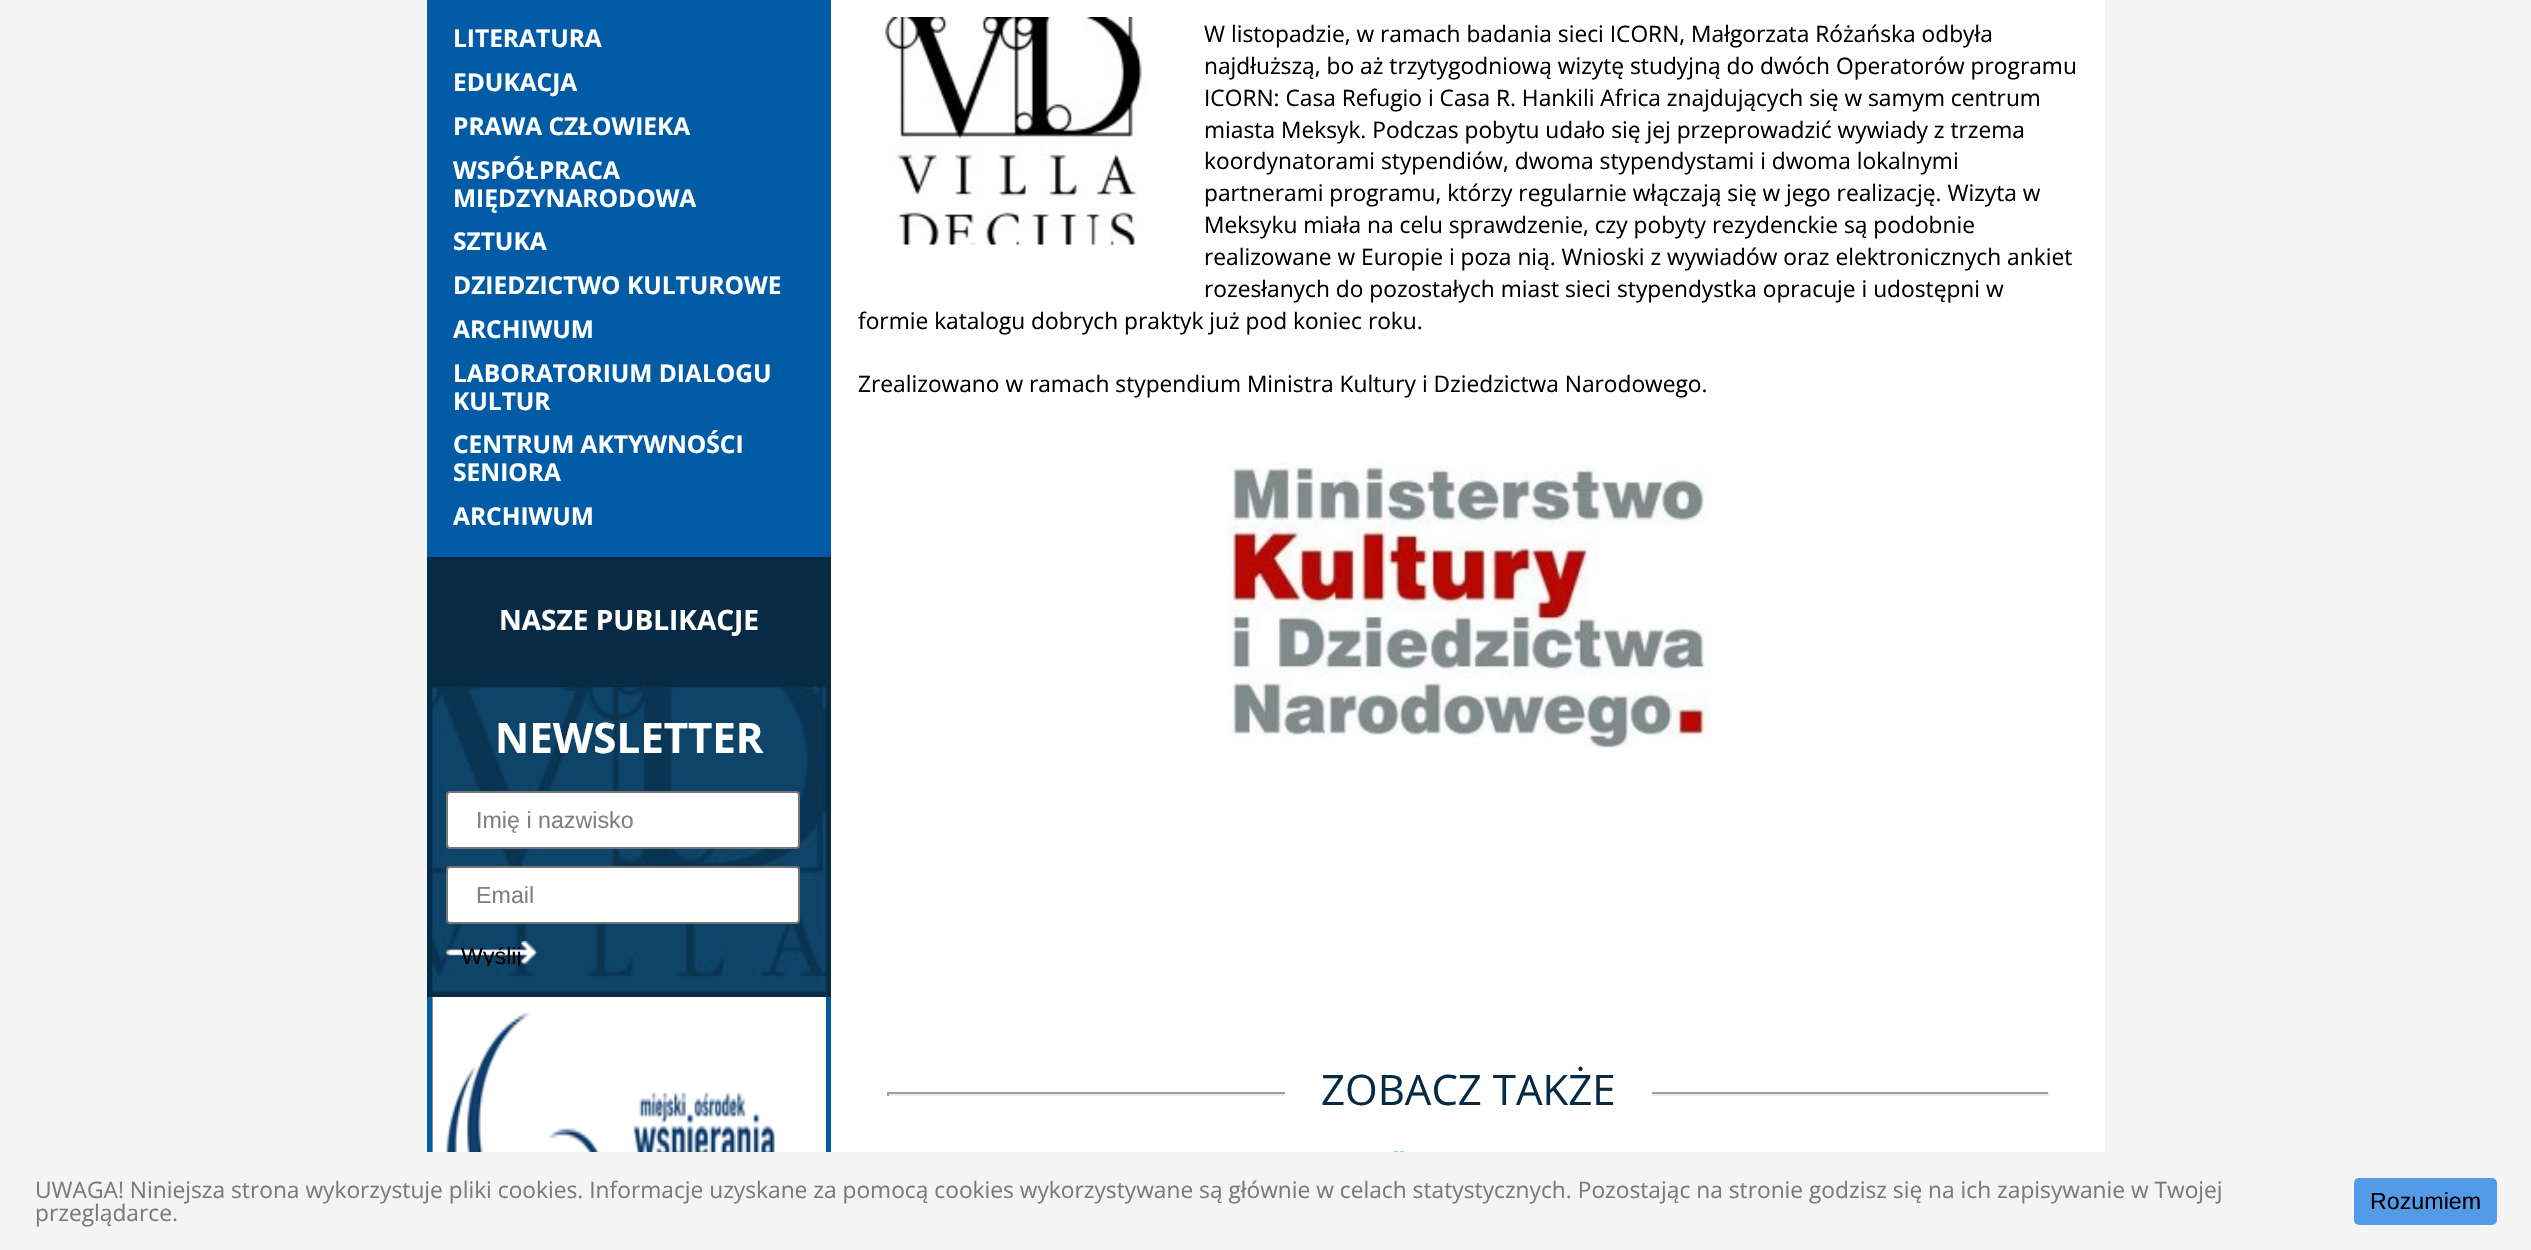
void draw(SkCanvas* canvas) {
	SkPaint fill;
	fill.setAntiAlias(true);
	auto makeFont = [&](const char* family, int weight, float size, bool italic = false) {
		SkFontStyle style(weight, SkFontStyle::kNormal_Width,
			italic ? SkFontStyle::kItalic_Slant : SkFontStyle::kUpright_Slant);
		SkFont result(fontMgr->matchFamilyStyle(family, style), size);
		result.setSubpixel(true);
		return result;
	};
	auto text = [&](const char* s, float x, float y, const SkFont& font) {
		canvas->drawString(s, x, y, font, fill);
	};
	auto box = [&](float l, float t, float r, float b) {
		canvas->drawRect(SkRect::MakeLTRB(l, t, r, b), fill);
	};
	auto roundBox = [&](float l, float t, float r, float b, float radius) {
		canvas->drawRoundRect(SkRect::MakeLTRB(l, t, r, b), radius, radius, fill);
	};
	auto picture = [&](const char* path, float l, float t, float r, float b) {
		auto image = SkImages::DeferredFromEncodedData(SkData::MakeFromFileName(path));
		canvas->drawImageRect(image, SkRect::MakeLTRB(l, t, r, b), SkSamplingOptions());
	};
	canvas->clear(0xFFF4F4F4);
	fill.setColor(0xFF015CA5);
	box(427, 0, 831, 1152);
	fill.setColor(0xFF072B45);
	box(427, 557, 831, 682);
	picture("image0.png", 427, 682, 831, 997);
	fill.setColor(0xFFFFFFFF);
	canvas->drawRoundRect(SkRect::MakeLTRB(447, 792, 799, 848), 3, 3, fill);
	fill.setStyle(SkPaint::kStroke_Style);
	fill.setStrokeWidth(2);
	fill.setColor(0xFF767676);
	canvas->drawRoundRect(SkRect::MakeLTRB(447, 792, 799, 848), 3, 3, fill);
	fill.setStyle(SkPaint::kFill_Style);
	fill.setColor(0xFFFFFFFF);
	canvas->drawRoundRect(SkRect::MakeLTRB(447, 867, 799, 923), 3, 3, fill);
	fill.setStyle(SkPaint::kStroke_Style);
	fill.setColor(0xFF767676);
	canvas->drawRoundRect(SkRect::MakeLTRB(447, 867, 799, 923), 3, 3, fill);
	picture("image1.png", 446, 941, 538, 966);
	fill.setStyle(SkPaint::kFill_Style);
	fill.setColor(0xFF000000);
	box(432, 998, 433, 1152);
	picture("image2.png", 432, 997, 826, 1152);
	fill.setColor(0xFFFFFFFF);
	box(831, 0, 2105, 1152);
	picture("image3.png", 885, 17, 1148, 245);
	picture("image4.png", 1227, 461, 1711, 749);
	fill.setColor(0xFF9F9F9F);
	box(887, 1092, 2049, 1094);
	fill.setColor(0xFFEEEEEE);
	box(2048, 1092, 2050, 1096);
	box(887, 1094, 2049, 1096);
	fill.setColor(0xFFFFFFFF);
	box(1285, 1092, 1652, 1096);
	fill.setColor(0xFF9F9F9F);
	box(887, 1092, 889, 1096);
	picture("image5.png", 1393, 1151, 1404, 1152);
	fill.setColor(0xFF539BE7);
	roundBox(2354, 1178, 2497, 1225, 5);
	auto font1 = makeFont("Open Sans", 700, 24.5f);
	fill.setColor(0xFFFFFFFF);
	text("LITERATURA", 453, 47, font1);
	text("EDUKACJA", 453, 91, font1);
	text("PRAWA CZŁOWIEKA", 453, 135, font1);
	text("WSPÓŁPRACA", 453, 179, font1);
	text("MIĘDZYNARODOWA", 453, 207, font1);
	text("SZTUKA", 453, 250, font1);
	text("DZIEDZICTWO KULTUROWE", 453, 294, font1);
	text("ARCHIWUM", 453, 338, font1);
	text("LABORATORIUM DIALOGU", 453, 382, font1);
	text("KULTUR", 453, 410, font1);
	text("CENTRUM AKTYWNOŚCI", 453, 453, font1);
	text("SENIORA", 453, 481, font1);
	text("ARCHIWUM", 453, 525, font1);
	auto font2 = makeFont("Open Sans", 700, 28);
	text("NASZE PUBLIKACJE", 499, 630, font2);
	auto font3 = makeFont("Open Sans", 700, 42);
	text("NEWSLETTER", 495, 753, font3);
	auto font4 = makeFont("Liberation Sans", 400, 23.25f);
	fill.setColor(0xFF808080);
	text("Imię i nazwisko", 476, 828, font4);
	text("Email", 476, 903, font4);
	canvas->save();
	canvas->clipRect(SkRect::MakeLTRB(446, 942, 537, 966));
	fill.setColor(0xFF000000);
	text("Wyślij", 461, 964, font4);
	canvas->restore();
	auto font5 = makeFont("Open Sans", 400, 22.75f);
	text("W listopadzie, w ramach badania sieci ICORN, Małgorzata Różańska odbyła", 1204, 42, font5);
	text("najdłuższą, bo aż trzytygodniową wizytę studyjną do dwóch Operatorów programu", 1204, 74, font5);
	text("ICORN: Casa Refugio i Casa R. Hankili Africa znajdujących się w samym centrum", 1204, 106, font5);
	text("miasta Meksyk. Podczas pobytu udało się jej przeprowadzić wywiady z trzema", 1204, 138, font5);
	text("koordynatorami stypendiów, dwoma stypendystami i dwoma lokalnymi", 1204, 169, font5);
	text("partnerami programu, którzy regularnie włączają się w jego realizację. Wizyta w", 1204, 201, font5);
	text("Meksyku miała na celu sprawdzenie, czy pobyty rezydenckie są podobnie", 1204, 233, font5);
	text("realizowane w Europie i poza nią. Wnioski z wywiadów oraz elektronicznych ankiet", 1204, 265, font5);
	text("rozesłanych do pozostałych miast sieci stypendystka opracuje i udostępni w", 1204, 297, font5);
	text("formie katalogu dobrych praktyk już pod koniec roku.", 858, 329, font5);
	text("Zrealizowano w ramach stypendium Ministra Kultury i Dziedzictwa Narodowego.", 858, 392, font5);
	auto font6 = makeFont("Open Sans", 400, 42);
	fill.setColor(0xFF072B45);
	text("ZOBACZ TAKŻE", 1321, 1105, font6);
	fill.setColor(0xFF7A7A7A);
	text("UWAGA! Niniejsza strona wykorzystuje pliki cookies. Informacje uzyskane za pomocą cookies wykorzystywane są głównie w celach statystycznych. Pozostając na stronie godzisz się na ich zapisywanie w Twojej", 35, 1198, font5);
	text("przeglądarce.", 35, 1221, font5);
	fill.setColor(0xFF000000);
	text("Rozumiem", 2370, 1209, font4);
}
